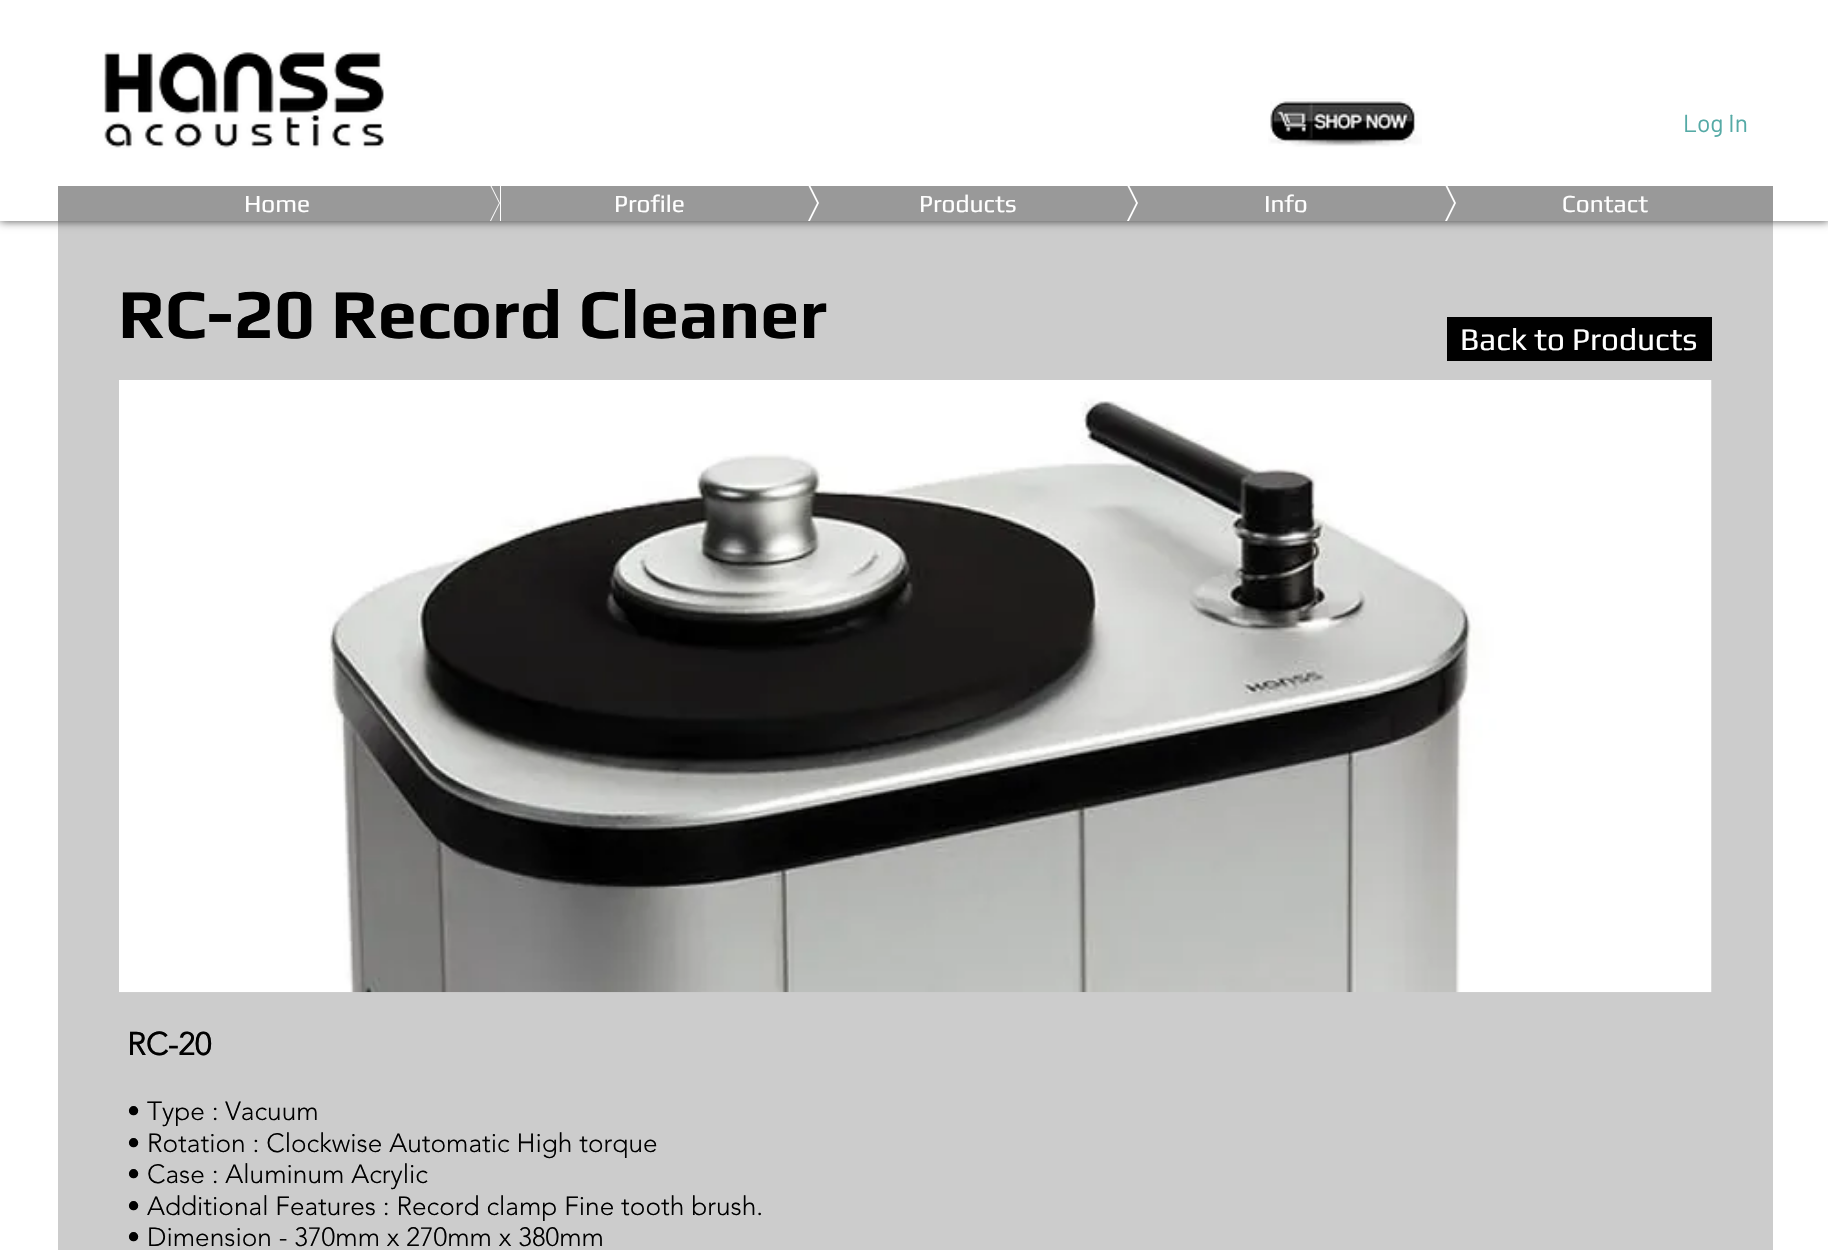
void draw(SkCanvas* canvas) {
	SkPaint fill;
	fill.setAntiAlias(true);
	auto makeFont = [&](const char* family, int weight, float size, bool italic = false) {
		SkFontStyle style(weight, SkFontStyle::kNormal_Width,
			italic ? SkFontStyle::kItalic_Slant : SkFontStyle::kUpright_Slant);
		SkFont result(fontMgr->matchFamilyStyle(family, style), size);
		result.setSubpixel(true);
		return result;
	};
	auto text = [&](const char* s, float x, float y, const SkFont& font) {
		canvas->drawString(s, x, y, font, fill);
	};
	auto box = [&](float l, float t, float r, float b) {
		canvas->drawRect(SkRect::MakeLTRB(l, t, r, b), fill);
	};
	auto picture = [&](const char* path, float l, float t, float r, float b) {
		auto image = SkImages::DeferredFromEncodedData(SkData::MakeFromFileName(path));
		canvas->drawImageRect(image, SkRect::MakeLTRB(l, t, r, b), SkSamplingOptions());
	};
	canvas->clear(0xFFFFFFFF);
	canvas->save();
	canvas->clipPath(SkPathBuilder(SkPathFillType::kEvenOdd).moveTo(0, 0).lineTo(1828, 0).lineTo(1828, 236).lineTo(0, 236).close().moveTo(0, 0).lineTo(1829, 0).lineTo(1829, 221).lineTo(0, 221).close().detach(), true);
	fill.setColor(0xB3000000);
	fill.setMaskFilter(SkMaskFilter::MakeBlur(kNormal_SkBlurStyle, 4.5f));
	canvas->drawRect(SkRect::MakeLTRB(0, 0, 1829, 221), fill);
	fill.setMaskFilter(nullptr);
	canvas->restore();
	fill.setColor(0x99FFFFFF);
	box(0, 220, 1828, 221);
	picture("image0.png", 104, 52, 384, 149);
	picture("image1.png", 1268, 98, 1422, 147);
	fill.setColor(0x7DFFFFFF);
	box(0, 220, 1828, 221);
	fill.setColor(0xFF999999);
	box(58, 186, 376, 221);
	canvas->save();
	canvas->clipRect(SkRect::MakeLTRB(376, 186, 499, 221));
	canvas->drawPath(SkPathBuilder().moveTo(499, 203).lineTo(376, 203).lineTo(376, -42).close().detach(), fill);
	canvas->drawPath(SkPathBuilder().moveTo(376, 203).lineTo(499, 203).lineTo(376, 448).close().detach(), fill);
	canvas->restore();
	canvas->save();
	canvas->clipRect(SkRect::MakeLTRB(378, 186, 501, 221));
	canvas->drawPath(SkPathBuilder().moveTo(378, -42).lineTo(500, -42).lineTo(500, 203).close().moveTo(500, 448).lineTo(378, 448).lineTo(500, 203).close().detach(), fill);
	canvas->restore();
	box(501, 186, 695, 221);
	canvas->save();
	canvas->clipRect(SkRect::MakeLTRB(695, 186, 817, 221));
	canvas->drawPath(SkPathBuilder().moveTo(817, 203).lineTo(695, 203).lineTo(695, -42).close().detach(), fill);
	canvas->drawPath(SkPathBuilder().moveTo(695, 203).lineTo(817, 203).lineTo(695, 448).close().detach(), fill);
	canvas->restore();
	canvas->save();
	canvas->clipRect(SkRect::MakeLTRB(697, 186, 819, 221));
	canvas->drawPath(SkPathBuilder().moveTo(696, -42).lineTo(819, -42).lineTo(819, 203).close().moveTo(819, 448).lineTo(696, 448).lineTo(819, 203).close().detach(), fill);
	canvas->restore();
	box(819, 186, 1013, 221);
	canvas->save();
	canvas->clipRect(SkRect::MakeLTRB(1013, 186, 1136, 221));
	canvas->drawPath(SkPathBuilder().moveTo(1136, 203).lineTo(1013, 203).lineTo(1013, -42).close().detach(), fill);
	canvas->drawPath(SkPathBuilder().moveTo(1013, 203).lineTo(1136, 203).lineTo(1013, 448).close().detach(), fill);
	canvas->restore();
	canvas->save();
	canvas->clipRect(SkRect::MakeLTRB(1015, 186, 1138, 221));
	canvas->drawPath(SkPathBuilder().moveTo(1015, -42).lineTo(1138, -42).lineTo(1138, 203).close().moveTo(1138, 448).lineTo(1015, 448).lineTo(1138, 203).close().detach(), fill);
	canvas->restore();
	box(1138, 186, 1332, 221);
	canvas->save();
	canvas->clipRect(SkRect::MakeLTRB(1332, 186, 1454, 221));
	canvas->drawPath(SkPathBuilder().moveTo(1454, 203).lineTo(1332, 203).lineTo(1332, -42).close().detach(), fill);
	canvas->drawPath(SkPathBuilder().moveTo(1332, 203).lineTo(1454, 203).lineTo(1332, 448).close().detach(), fill);
	canvas->restore();
	canvas->save();
	canvas->clipRect(SkRect::MakeLTRB(1334, 186, 1456, 221));
	canvas->drawPath(SkPathBuilder().moveTo(1334, -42).lineTo(1456, -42).lineTo(1456, 203).close().moveTo(1456, 448).lineTo(1334, 448).lineTo(1456, 203).close().detach(), fill);
	canvas->restore();
	box(1456, 186, 1773, 221);
	fill.setColor(0x33000000);
	box(58, 221, 1773, 1250);
	fill.setColor(0xFF000000);
	box(1447, 317, 1712, 361);
	picture("image2.png", 119, 380, 1712, 993);
	auto font1 = makeFont("Barlow", 400, 24.5f);
	fill.setColor(0xFF55AAA6);
	text("Log In", 1683, 132, font1);
	auto font2 = makeFont("Play", 400, 24.5f);
	fill.setColor(0xFFFFFFFF);
	text("Home", 244, 212, font2);
	text("Profile", 614, 212, font2);
	text("Products", 919, 212, font2);
	text("Info", 1264, 212, font2);
	text("Contact", 1562, 212, font2);
	auto font3 = makeFont("Play", 700, 70);
	fill.setColor(0xFF000000);
	text("RC-20 Record Cleaner", 118, 338, font3);
	auto font4 = makeFont("Play", 400, 31.5f);
	fill.setColor(0xFFFFFFFF);
	text("Back to Products", 1460, 350, font4);
	auto font5 = makeFont("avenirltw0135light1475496", 700, 31.5f);
	fill.setColor(0xFF000000);
	text("RC-20", 127, 1055, font5);
	auto font6 = makeFont("avenirltw0135light1475496", 300, 26.25f);
	text("• Type : Vacuum", 127, 1120, font6);
	text("• Rotation : Clockwise Automatic High torque", 127, 1152, font6);
	text("• Case : Aluminum Acrylic", 127, 1183, font6);
	text("• Additional Features : Record clamp Fine tooth brush.", 127, 1215, font6);
	text("• Dimension - 370mm x 270mm x 380mm", 127, 1246, font6);
}
